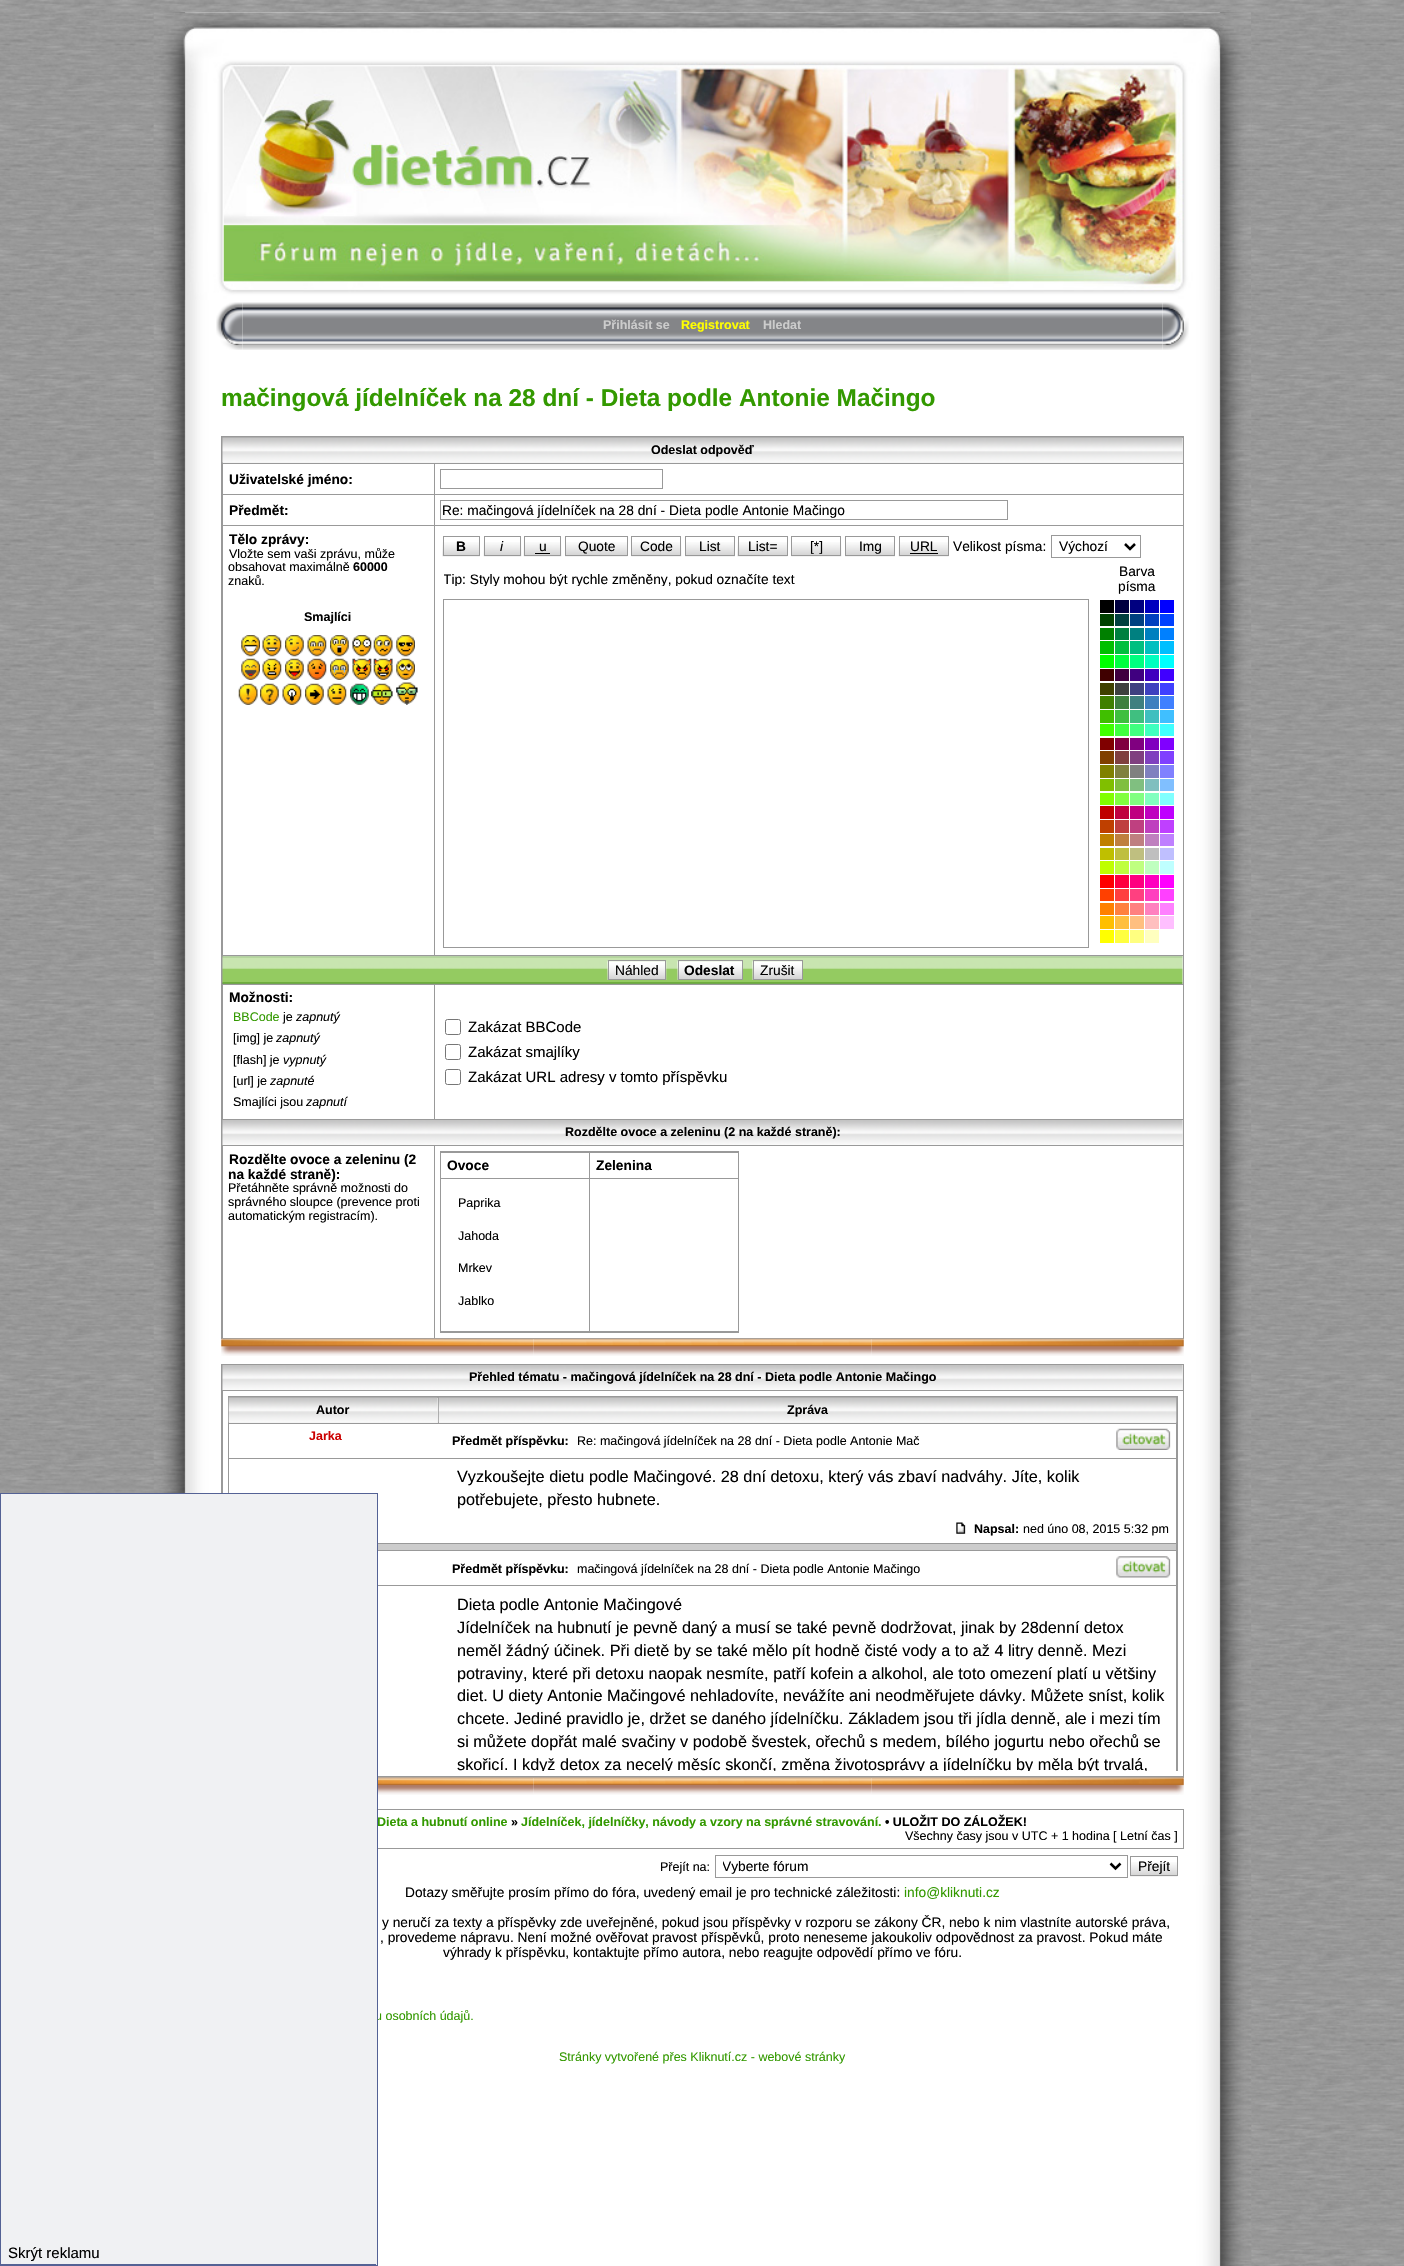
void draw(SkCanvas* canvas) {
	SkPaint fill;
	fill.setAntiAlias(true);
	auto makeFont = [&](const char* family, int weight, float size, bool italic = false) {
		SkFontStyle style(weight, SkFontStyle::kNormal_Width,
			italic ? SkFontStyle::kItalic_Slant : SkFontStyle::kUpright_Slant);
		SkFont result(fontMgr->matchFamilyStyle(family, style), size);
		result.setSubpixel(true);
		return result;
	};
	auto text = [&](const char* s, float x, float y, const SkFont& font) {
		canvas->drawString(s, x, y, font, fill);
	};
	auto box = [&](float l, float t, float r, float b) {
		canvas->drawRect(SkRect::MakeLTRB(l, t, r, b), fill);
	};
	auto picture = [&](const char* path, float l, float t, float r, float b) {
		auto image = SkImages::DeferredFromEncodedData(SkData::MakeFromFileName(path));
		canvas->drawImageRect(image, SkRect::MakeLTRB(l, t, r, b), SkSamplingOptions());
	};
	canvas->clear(0xFFFFFFFF);
	picture("image0.png", 0, 0, 1404, 2266);
	picture("image1.png", 153, 12, 1252, 2266);
	picture("image2.png", 153, 12, 1251, 300);
	picture("image3.png", 216, 302, 243, 350);
	picture("image4.png", 1162, 302, 1189, 350);
	picture("image5.png", 242, 302, 1163, 350);
	fill.setColor(0xFF999999);
	box(221, 436, 1184, 1339);
	fill.setColor(0xFFEEEEEE);
	box(223, 438, 1183, 463);
	picture("image6.png", 222, 437, 1183, 463);
	fill.setColor(0xFFFFFFFF);
	box(223, 464, 434, 494);
	box(435, 464, 1183, 494);
	fill.setStyle(SkPaint::kStroke_Style);
	fill.setStrokeWidth(1);
	fill.setColor(0xFF999999);
	canvas->drawRect(SkRect::MakeLTRB(440.5f, 469.5f, 662.5f, 488.5f), fill);
	fill.setStyle(SkPaint::kFill_Style);
	fill.setColor(0xFFFFFFFF);
	box(223, 495, 434, 525);
	box(435, 495, 1183, 525);
	fill.setStyle(SkPaint::kStroke_Style);
	fill.setColor(0xFF999999);
	canvas->drawRect(SkRect::MakeLTRB(440.5f, 500.5f, 1007.5f, 519.5f), fill);
	fill.setStyle(SkPaint::kFill_Style);
	fill.setColor(0xFFFFFFFF);
	box(223, 526, 434, 955);
	picture("image7.png", 241, 635, 260, 657);
	picture("image8.png", 262, 635, 282, 657);
	picture("image9.png", 285, 635, 304, 657);
	picture("image10.png", 307, 635, 327, 657);
	picture("image11.png", 330, 635, 349, 657);
	picture("image12.png", 352, 635, 372, 657);
	picture("image13.png", 373, 635, 393, 657);
	picture("image14.png", 396, 635, 415, 657);
	picture("image15.png", 241, 658, 260, 680);
	picture("image16.png", 262, 658, 282, 680);
	picture("image17.png", 285, 658, 304, 680);
	picture("image18.png", 307, 658, 327, 680);
	picture("image19.png", 330, 658, 349, 680);
	picture("image20.png", 352, 658, 372, 680);
	picture("image21.png", 373, 658, 393, 680);
	picture("image22.png", 396, 658, 415, 680);
	picture("image23.png", 238, 683, 258, 705);
	picture("image24.png", 260, 683, 279, 705);
	picture("image25.png", 282, 683, 302, 705);
	picture("image26.png", 305, 683, 324, 705);
	picture("image27.png", 327, 683, 347, 705);
	picture("image28.png", 350, 683, 369, 705);
	picture("image29.png", 371, 683, 393, 705);
	picture("image30.png", 396, 682, 418, 705);
	box(435, 526, 1183, 955);
	picture("image31.png", 442, 542, 480, 557);
	fill.setStyle(SkPaint::kStroke_Style);
	fill.setColor(0xFF999999);
	canvas->drawRect(SkRect::MakeLTRB(443.5f, 536.5f, 479.5f, 555.5f), fill);
	picture("image32.png", 483, 542, 522, 557);
	canvas->drawRect(SkRect::MakeLTRB(484.5f, 536.5f, 520.5f, 555.5f), fill);
	picture("image32.png", 523, 542, 562, 557);
	canvas->drawRect(SkRect::MakeLTRB(524.5f, 536.5f, 560.5f, 555.5f), fill);
	fill.setStyle(SkPaint::kFill_Style);
	fill.setColor(0xFF000000);
	box(535, 553, 550, 554);
	picture("image33.png", 565, 542, 628, 557);
	fill.setStyle(SkPaint::kStroke_Style);
	fill.setColor(0xFF999999);
	canvas->drawRect(SkRect::MakeLTRB(565.5f, 536.5f, 627.5f, 555.5f), fill);
	picture("image34.png", 631, 542, 682, 557);
	canvas->drawRect(SkRect::MakeLTRB(631.5f, 536.5f, 680.5f, 555.5f), fill);
	picture("image35.png", 685, 542, 735, 557);
	canvas->drawRect(SkRect::MakeLTRB(685.5f, 536.5f, 734.5f, 555.5f), fill);
	picture("image36.png", 737, 542, 788, 557);
	canvas->drawRect(SkRect::MakeLTRB(738.5f, 536.5f, 787.5f, 555.5f), fill);
	picture("image37.png", 791, 542, 842, 557);
	canvas->drawRect(SkRect::MakeLTRB(791.5f, 536.5f, 840.5f, 555.5f), fill);
	picture("image38.png", 845, 542, 895, 557);
	canvas->drawRect(SkRect::MakeLTRB(845.5f, 536.5f, 894.5f, 555.5f), fill);
	picture("image39.png", 898, 542, 949, 557);
	canvas->drawRect(SkRect::MakeLTRB(899.5f, 536.5f, 948.5f, 555.5f), fill);
	fill.setStyle(SkPaint::kFill_Style);
	fill.setColor(0xFF000000);
	box(910, 553, 938, 554);
	fill.setStyle(SkPaint::kStroke_Style);
	fill.setColor(0xFF999999);
	canvas->drawRect(SkRect::MakeLTRB(1051.5f, 535.5f, 1140.5f, 557.5f), fill);
	fill.setStrokeWidth(2.5f);
	fill.setColor(0xFF000000);
	canvas->drawPath(SkPathBuilder().moveTo(1125, 544).lineTo(1130, 549).lineTo(1135, 544).detach(), fill);
	fill.setStrokeWidth(1);
	fill.setColor(0xFF999999);
	canvas->drawRect(SkRect::MakeLTRB(443.5f, 599.5f, 1088.5f, 947.5f), fill);
	fill.setStyle(SkPaint::kFill_Style);
	fill.setColor(0xFF000000);
	box(1100, 600, 1114, 613);
	fill.setColor(0xFF000040);
	box(1115, 600, 1129, 613);
	fill.setColor(0xFF000080);
	box(1130, 600, 1144, 613);
	fill.setColor(0xFF0000BF);
	box(1145, 600, 1159, 613);
	fill.setColor(0xFF0000FF);
	box(1160, 600, 1174, 613);
	fill.setColor(0xFF004000);
	box(1100, 614, 1114, 626);
	fill.setColor(0xFF004040);
	box(1115, 614, 1129, 626);
	fill.setColor(0xFF004080);
	box(1130, 614, 1144, 626);
	fill.setColor(0xFF0040BF);
	box(1145, 614, 1159, 626);
	fill.setColor(0xFF0040FF);
	box(1160, 614, 1174, 626);
	fill.setColor(0xFF008000);
	box(1100, 628, 1114, 640);
	fill.setColor(0xFF008040);
	box(1115, 628, 1129, 640);
	fill.setColor(0xFF008080);
	box(1130, 628, 1144, 640);
	fill.setColor(0xFF0080BF);
	box(1145, 628, 1159, 640);
	fill.setColor(0xFF0080FF);
	box(1160, 628, 1174, 640);
	fill.setColor(0xFF00BF00);
	box(1100, 641, 1114, 654);
	fill.setColor(0xFF00BF40);
	box(1115, 641, 1129, 654);
	fill.setColor(0xFF00BF80);
	box(1130, 641, 1144, 654);
	fill.setColor(0xFF00BFBF);
	box(1145, 641, 1159, 654);
	fill.setColor(0xFF00BFFF);
	box(1160, 641, 1174, 654);
	fill.setColor(0xFF00FF00);
	box(1100, 655, 1114, 668);
	fill.setColor(0xFF00FF40);
	box(1115, 655, 1129, 668);
	fill.setColor(0xFF00FF80);
	box(1130, 655, 1144, 668);
	fill.setColor(0xFF00FFBF);
	box(1145, 655, 1159, 668);
	fill.setColor(0xFF00FFFF);
	box(1160, 655, 1174, 668);
	fill.setColor(0xFF400000);
	box(1100, 669, 1114, 681);
	fill.setColor(0xFF400040);
	box(1115, 669, 1129, 681);
	fill.setColor(0xFF400080);
	box(1130, 669, 1144, 681);
	fill.setColor(0xFF4000BF);
	box(1145, 669, 1159, 681);
	fill.setColor(0xFF4000FF);
	box(1160, 669, 1174, 681);
	fill.setColor(0xFF404000);
	box(1100, 683, 1114, 695);
	fill.setColor(0xFF404040);
	box(1115, 683, 1129, 695);
	fill.setColor(0xFF404080);
	box(1130, 683, 1144, 695);
	fill.setColor(0xFF4040BF);
	box(1145, 683, 1159, 695);
	fill.setColor(0xFF4040FF);
	box(1160, 683, 1174, 695);
	fill.setColor(0xFF408000);
	box(1100, 696, 1114, 709);
	fill.setColor(0xFF408040);
	box(1115, 696, 1129, 709);
	fill.setColor(0xFF408080);
	box(1130, 696, 1144, 709);
	fill.setColor(0xFF4080BF);
	box(1145, 696, 1159, 709);
	fill.setColor(0xFF4080FF);
	box(1160, 696, 1174, 709);
	fill.setColor(0xFF40BF00);
	box(1100, 710, 1114, 723);
	fill.setColor(0xFF40BF40);
	box(1115, 710, 1129, 723);
	fill.setColor(0xFF40BF80);
	box(1130, 710, 1144, 723);
	fill.setColor(0xFF40BFBF);
	box(1145, 710, 1159, 723);
	fill.setColor(0xFF40BFFF);
	box(1160, 710, 1174, 723);
	fill.setColor(0xFF40FF00);
	box(1100, 724, 1114, 736);
	fill.setColor(0xFF40FF40);
	box(1115, 724, 1129, 736);
	fill.setColor(0xFF40FF80);
	box(1130, 724, 1144, 736);
	fill.setColor(0xFF40FFBF);
	box(1145, 724, 1159, 736);
	fill.setColor(0xFF40FFFF);
	box(1160, 724, 1174, 736);
	fill.setColor(0xFF800000);
	box(1100, 738, 1114, 750);
	fill.setColor(0xFF800040);
	box(1115, 738, 1129, 750);
	fill.setColor(0xFF800080);
	box(1130, 738, 1144, 750);
	fill.setColor(0xFF8000BF);
	box(1145, 738, 1159, 750);
	fill.setColor(0xFF8000FF);
	box(1160, 738, 1174, 750);
	fill.setColor(0xFF804000);
	box(1100, 751, 1114, 764);
	fill.setColor(0xFF804040);
	box(1115, 751, 1129, 764);
	fill.setColor(0xFF804080);
	box(1130, 751, 1144, 764);
	fill.setColor(0xFF8040BF);
	box(1145, 751, 1159, 764);
	fill.setColor(0xFF8040FF);
	box(1160, 751, 1174, 764);
	fill.setColor(0xFF808000);
	box(1100, 765, 1114, 778);
	fill.setColor(0xFF808040);
	box(1115, 765, 1129, 778);
	fill.setColor(0xFF808080);
	box(1130, 765, 1144, 778);
	fill.setColor(0xFF8080BF);
	box(1145, 765, 1159, 778);
	fill.setColor(0xFF8080FF);
	box(1160, 765, 1174, 778);
	fill.setColor(0xFF80BF00);
	box(1100, 779, 1114, 791);
	fill.setColor(0xFF80BF40);
	box(1115, 779, 1129, 791);
	fill.setColor(0xFF80BF80);
	box(1130, 779, 1144, 791);
	fill.setColor(0xFF80BFBF);
	box(1145, 779, 1159, 791);
	fill.setColor(0xFF80BFFF);
	box(1160, 779, 1174, 791);
	fill.setColor(0xFF80FF00);
	box(1100, 793, 1114, 805);
	fill.setColor(0xFF80FF40);
	box(1115, 793, 1129, 805);
	fill.setColor(0xFF80FF80);
	box(1130, 793, 1144, 805);
	fill.setColor(0xFF80FFBF);
	box(1145, 793, 1159, 805);
	fill.setColor(0xFF80FFFF);
	box(1160, 793, 1174, 805);
	fill.setColor(0xFFBF0000);
	box(1100, 806, 1114, 819);
	fill.setColor(0xFFBF0040);
	box(1115, 806, 1129, 819);
	fill.setColor(0xFFBF0080);
	box(1130, 806, 1144, 819);
	fill.setColor(0xFFBF00BF);
	box(1145, 806, 1159, 819);
	fill.setColor(0xFFBF00FF);
	box(1160, 806, 1174, 819);
	fill.setColor(0xFFBF4000);
	box(1100, 820, 1114, 833);
	fill.setColor(0xFFBF4040);
	box(1115, 820, 1129, 833);
	fill.setColor(0xFFBF4080);
	box(1130, 820, 1144, 833);
	fill.setColor(0xFFBF40BF);
	box(1145, 820, 1159, 833);
	fill.setColor(0xFFBF40FF);
	box(1160, 820, 1174, 833);
	fill.setColor(0xFFBF8000);
	box(1100, 834, 1114, 846);
	fill.setColor(0xFFBF8040);
	box(1115, 834, 1129, 846);
	fill.setColor(0xFFBF8080);
	box(1130, 834, 1144, 846);
	fill.setColor(0xFFBF80BF);
	box(1145, 834, 1159, 846);
	fill.setColor(0xFFBF80FF);
	box(1160, 834, 1174, 846);
	fill.setColor(0xFFBFBF00);
	box(1100, 848, 1114, 860);
	fill.setColor(0xFFBFBF40);
	box(1115, 848, 1129, 860);
	fill.setColor(0xFFBFBF80);
	box(1130, 848, 1144, 860);
	fill.setColor(0xFFBFBFBF);
	box(1145, 848, 1159, 860);
	fill.setColor(0xFFBFBFFF);
	box(1160, 848, 1174, 860);
	fill.setColor(0xFFBFFF00);
	box(1100, 861, 1114, 874);
	fill.setColor(0xFFBFFF40);
	box(1115, 861, 1129, 874);
	fill.setColor(0xFFBFFF80);
	box(1130, 861, 1144, 874);
	fill.setColor(0xFFBFFFBF);
	box(1145, 861, 1159, 874);
	fill.setColor(0xFFBFFFFF);
	box(1160, 861, 1174, 874);
	fill.setColor(0xFFFF0000);
	box(1100, 875, 1114, 888);
	fill.setColor(0xFFFF0040);
	box(1115, 875, 1129, 888);
	fill.setColor(0xFFFF0080);
	box(1130, 875, 1144, 888);
	fill.setColor(0xFFFF00BF);
	box(1145, 875, 1159, 888);
	fill.setColor(0xFFFF00FF);
	box(1160, 875, 1174, 888);
	fill.setColor(0xFFFF4000);
	box(1100, 889, 1114, 901);
	fill.setColor(0xFFFF4040);
	box(1115, 889, 1129, 901);
	fill.setColor(0xFFFF4080);
	box(1130, 889, 1144, 901);
	fill.setColor(0xFFFF40BF);
	box(1145, 889, 1159, 901);
	fill.setColor(0xFFFF40FF);
	box(1160, 889, 1174, 901);
	fill.setColor(0xFFFF8000);
	box(1100, 903, 1114, 915);
	fill.setColor(0xFFFF8040);
	box(1115, 903, 1129, 915);
	fill.setColor(0xFFFF8080);
	box(1130, 903, 1144, 915);
	fill.setColor(0xFFFF80BF);
	box(1145, 903, 1159, 915);
	fill.setColor(0xFFFF80FF);
	box(1160, 903, 1174, 915);
	fill.setColor(0xFFFFBF00);
	box(1100, 916, 1114, 929);
	fill.setColor(0xFFFFBF40);
	box(1115, 916, 1129, 929);
	fill.setColor(0xFFFFBF80);
	box(1130, 916, 1144, 929);
	fill.setColor(0xFFFFBFBF);
	box(1145, 916, 1159, 929);
	fill.setColor(0xFFFFBFFF);
	box(1160, 916, 1174, 929);
	fill.setColor(0xFFFFFF00);
	box(1100, 930, 1114, 943);
	fill.setColor(0xFFFFFF40);
	box(1115, 930, 1129, 943);
	fill.setColor(0xFFFFFF80);
	box(1130, 930, 1144, 943);
	fill.setColor(0xFFFFFFBF);
	box(1145, 930, 1159, 943);
	fill.setColor(0xFFECECEC);
	box(223, 956, 1183, 984);
	picture("image40.png", 222, 956, 1183, 984);
	picture("image41.png", 607, 961, 667, 980);
	fill.setStyle(SkPaint::kStroke_Style);
	fill.setColor(0xFF999999);
	canvas->drawRect(SkRect::MakeLTRB(608.5f, 960.5f, 665.5f, 979.5f), fill);
	picture("image42.png", 677, 961, 742, 980);
	canvas->drawRect(SkRect::MakeLTRB(678.5f, 960.5f, 742.5f, 979.5f), fill);
	picture("image43.png", 752, 961, 802, 980);
	canvas->drawRect(SkRect::MakeLTRB(753.5f, 960.5f, 802.5f, 979.5f), fill);
	fill.setStyle(SkPaint::kFill_Style);
	fill.setColor(0xFFFFFFFF);
	box(223, 985, 434, 1119);
	box(435, 985, 1183, 1119);
	fill.setStyle(SkPaint::kStroke_Style);
	fill.setColor(0xFF767676);
	canvas->drawRoundRect(SkRect::MakeLTRB(445.5f, 1019.5f, 460.5f, 1034.5f), 2, 2, fill);
	canvas->drawRoundRect(SkRect::MakeLTRB(445.5f, 1044.5f, 460.5f, 1059.5f), 2, 2, fill);
	canvas->drawRoundRect(SkRect::MakeLTRB(445.5f, 1069.5f, 460.5f, 1084.5f), 2, 2, fill);
	fill.setStyle(SkPaint::kFill_Style);
	fill.setColor(0xFFEEEEEE);
	box(1182, 1120, 1183, 1145);
	picture("image44.png", 222, 1120, 1183, 1145);
	fill.setColor(0xFFFFFFFF);
	box(223, 1146, 434, 1338);
	box(435, 1146, 1183, 1338);
	fill.setColor(0xFF999999);
	box(440, 1151, 739, 1333);
	fill.setColor(0xFFFFFFFF);
	box(441, 1153, 589, 1178);
	box(590, 1153, 738, 1178);
	box(441, 1179, 589, 1331);
	box(590, 1179, 738, 1331);
	picture("image45.png", 221, 1338, 534, 1356);
	picture("image46.png", 871, 1338, 1184, 1356);
	picture("image47.png", 533, 1338, 872, 1356);
	fill.setColor(0xFF999999);
	box(221, 1364, 1184, 1778);
	fill.setColor(0xFFEEEEEE);
	box(1182, 1365, 1183, 1390);
	picture("image48.png", 222, 1365, 1183, 1390);
	fill.setColor(0xFFFFFFFF);
	box(223, 1391, 1183, 1776);
	fill.setColor(0xFF999999);
	box(228, 1396, 1178, 1771);
	fill.setColor(0xFFEEEEEE);
	box(229, 1398, 438, 1423);
	picture("image49.png", 228, 1397, 438, 1423);
	box(439, 1422, 1176, 1423);
	picture("image50.png", 438, 1397, 1177, 1423);
	fill.setColor(0xFFFFFFFF);
	box(229, 1424, 1176, 1458);
	picture("image51.png", 1116, 1428, 1171, 1450);
	box(229, 1459, 1176, 1543);
	picture("image52.png", 956, 1522, 966, 1534);
	fill.setColor(0xFFCCCCCC);
	box(378, 1544, 1176, 1550);
	fill.setColor(0xFFFFFFFF);
	box(378, 1551, 1176, 1585);
	picture("image53.png", 1116, 1556, 1171, 1578);
	box(378, 1586, 1176, 1771);
	picture("image54.png", 378, 1777, 534, 1795);
	picture("image55.png", 871, 1777, 1184, 1795);
	picture("image56.png", 533, 1777, 872, 1795);
	fill.setColor(0xFF999999);
	box(378, 1809, 1184, 1849);
	fill.setColor(0xFFFFFFFF);
	box(378, 1810, 1183, 1848);
	fill.setStyle(SkPaint::kStroke_Style);
	fill.setColor(0xFF999999);
	canvas->drawRect(SkRect::MakeLTRB(715.5f, 1855.5f, 1127.5f, 1877.5f), fill);
	fill.setStrokeWidth(2.5f);
	fill.setColor(0xFF000000);
	canvas->drawPath(SkPathBuilder().moveTo(1110.5f, 1863.5f).lineTo(1115.5f, 1868.5f).lineTo(1120.5f, 1863.5f).detach(), fill);
	picture("image57.png", 1130, 1862, 1178, 1877);
	fill.setStrokeWidth(1);
	fill.setColor(0xFF999999);
	canvas->drawRect(SkRect::MakeLTRB(1130.5f, 1856.5f, 1177.5f, 1875.5f), fill);
	picture("image58.png", 378, 1885, 1252, 2266);
	auto font1 = makeFont("Liberation Sans", 700, 12.5f);
	fill.setStyle(SkPaint::kFill_Style);
	fill.setColor(0xFFCCCCCC);
	text("Přihlásit se", 603, 329, font1);
	fill.setColor(0xFFFFFF00);
	text("Registrovat", 681, 329, font1);
	fill.setColor(0xFFCCCCCC);
	text("Hledat", 763, 329, font1);
	auto font2 = makeFont("Liberation Sans", 700, 24.4f);
	fill.setColor(0xFF339900);
	text("mačingová jídelníček na 28 dní - Dieta podle Antonie Mačingo", 221, 406, font2);
	fill.setColor(0xFF000000);
	text("Odeslat odpověď", 651, 454, font1);
	auto font3 = makeFont("Liberation Sans", 700, 13.75f);
	text("Uživatelské jméno:", 229, 484, font3);
	text("Předmět:", 229, 515, font3);
	auto font4 = makeFont("Liberation Sans", 400, 13.75f);
	text("Re: mačingová jídelníček na 28 dní - Dieta podle Antonie Mačingo", 442, 515, font4);
	text("Tělo zprávy:", 229, 544, font3);
	auto font5 = makeFont("Liberation Sans", 400, 12.5f);
	text("Vložte sem vaši zprávu, může", 229, 558, font5);
	text("obsahovat maximálně", 228, 571, font5);
	text("60000", 353, 571, font1);
	text("znaků.", 228, 585, font5);
	text("Smajlíci", 304, 621, font1);
	text("B", 456, 551, font3);
	auto font6 = makeFont("Liberation Sans", 400, 13.75f, true);
	text("i", 500, 551, font6);
	text("u", 539, 551, font4);
	text("Quote", 578, 551, font4);
	text("Code", 640, 551, font4);
	text("List", 699, 551, font4);
	text("List=", 748, 551, font4);
	text("[*]", 810, 551, font4);
	text("Img", 859, 551, font4);
	text("URL", 910, 551, font4);
	text("Velikost písma:", 953, 551, font4);
	text("Výchozí", 1059, 551, font4);
	canvas->save();
	canvas->clipRect(SkRect::MakeLTRB(444, 571, 1095, 586));
	text("Tip: Styly mohou být rychle změněny, pokud označíte text", 443, 584, font4);
	canvas->restore();
	text("Barva", 1119, 576, font4);
	text("písma", 1118, 591, font4);
	text("Náhled", 615, 975, font4);
	text("Odeslat", 684, 975, font3);
	text("Zrušit", 760, 975, font4);
	text("Možnosti:", 229, 1002, font3);
	fill.setColor(0xFF339900);
	text("BBCode", 233, 1021, font5);
	fill.setColor(0xFF000000);
	text("je", 283, 1021, font5);
	auto font7 = makeFont("Liberation Sans", 400, 12.5f, true);
	text("zapnutý", 296, 1021, font7);
	text("[img] je", 233, 1042, font5);
	text("zapnutý", 276, 1042, font7);
	text("[flash] je", 233, 1064, font5);
	text("vypnutý", 283, 1064, font7);
	text("[url] je", 233, 1085, font5);
	text("zapnuté", 270, 1085, font7);
	text("Smajlíci jsou", 233, 1106, font5);
	text("zapnutí", 306, 1106, font7);
	auto font8 = makeFont("Liberation Sans", 400, 15);
	text("Zakázat BBCode", 468, 1032, font8);
	text("Zakázat smajlíky", 468, 1057, font8);
	text("Zakázat URL adresy v tomto příspěvku", 468, 1082, font8);
	text("Rozdělte ovoce a zeleninu (2 na každé straně):", 565, 1136, font1);
	text("Rozdělte ovoce a zeleninu (2", 229, 1164, font3);
	text("na každé straně):", 228, 1179, font3);
	text("Přetáhněte správně možnosti do", 228, 1192, font5);
	text("správného sloupce (prevence proti", 228, 1206, font5);
	text("automatickým registracím).", 228, 1220, font5);
	text("Ovoce", 447, 1170, font3);
	text("Zelenina", 596, 1170, font3);
	text("Paprika", 458, 1207, font5);
	text("Jahoda", 458, 1240, font5);
	text("Mrkev", 458, 1272, font5);
	text("Jablko", 458, 1305, font5);
	text("Přehled tématu - mačingová jídelníček na 28 dní - Dieta podle Antonie Mačingo", 469, 1381, font1);
	text("Autor", 316, 1414, font1);
	text("Zpráva", 787, 1414, font1);
	fill.setColor(0xFFCC0000);
	text("Jarka", 309, 1440, font1);
	fill.setColor(0xFF000000);
	text("Předmět příspěvku:", 452, 1445, font1);
	text("Re: mačingová jídelníček na 28 dní - Dieta podle Antonie Mač", 577, 1445, font5);
	auto font9 = makeFont("Liberation Sans", 400, 16.25f);
	text("Vyzkoušejte dietu podle Mačingové. 28 dní detoxu, který vás zbaví nadváhy. Jíte, kolik", 457, 1482, font9);
	text("potřebujete, přesto hubnete.", 457, 1505, font9);
	text("Napsal:", 974, 1533, font1);
	text("ned úno 08, 2015 5:32 pm", 1023, 1533, font5);
	text("Předmět příspěvku:", 452, 1573, font1);
	text("mačingová jídelníček na 28 dní - Dieta podle Antonie Mačingo", 577, 1573, font5);
	text("Dieta podle Antonie Mačingové", 457, 1610, font9);
	text("Jídelníček na hubnutí je pevně daný a musí se také pevně dodržovat, jinak by 28denní detox", 457, 1633, font9);
	text("neměl žádný účinek. Při dietě by se také mělo pít hodně čisté vody a to až 4 litry denně. Mezi", 457, 1656, font9);
	text("potraviny, které při detoxu naopak nesmíte, patří kofein a alkohol, ale toto omezení platí u většiny", 457, 1679, font9);
	text("diet. U diety Antonie Mačingové nehladovíte, nevážíte ani neodměřujete dávky. Můžete sníst, kolik", 457, 1701, font9);
	text("chcete. Jediné pravidlo je, držet se daného jídelníčku. Základem jsou tři jídla denně, ale i mezi tím", 457, 1724, font9);
	text("si můžete dopřát malé svačiny v podobě švestek, ořechů s medem, bílého jogurtu nebo ořechů se", 457, 1747, font9);
	canvas->save();
	canvas->clipRect(SkRect::MakeLTRB(228, 1396, 1178, 1771));
	text("skořicí. I když detox za necelý měsíc skončí, změna životosprávy a jídelníčku by měla být trvalá,", 457, 1770, font9);
	canvas->restore();
	fill.setColor(0xFF339900);
	text("Dieta a hubnutí online", 377, 1826, font1);
	fill.setColor(0xFF000000);
	text("»", 511, 1826, font1);
	fill.setColor(0xFF339900);
	text("Jídelníček, jídelníčky, návody a vzory na správné stravování.", 521, 1826, font1);
	fill.setColor(0xFF000000);
	text("• ULOŽIT DO ZÁLOŽEK!", 885, 1826, font1);
	text("Všechny časy jsou v UTC + 1 hodina [ Letní čas ]", 905, 1840, font5);
	text("Přejít na:", 660, 1871, font5);
	canvas->save();
	canvas->clipRect(SkRect::MakeLTRB(723, 1858, 1105, 1875));
	text("Vyberte fórum", 722, 1871, font4);
	canvas->restore();
	text("Přejít", 1138, 1871, font4);
	text("Dotazy směřujte prosím přímo do fóra, uvedený email je pro technické záležitosti:", 405, 1897, font4);
	fill.setColor(0xFF339900);
	text("info@kliknuti.cz", 904, 1897, font4);
	fill.setColor(0xFF000000);
	text("y neručí za texty a příspěvky zde uveřejněné, pokud jsou příspěvky v rozporu se zákony ČR, nebo k nim vlastníte autorské práva,", 382, 1927, font4);
	text(", provedeme nápravu. Není možné ověřovat pravost příspěvků, proto neneseme jakoukoliv odpovědnost za pravost. Pokud máte", 380, 1942, font4);
	text("výhrady k příspěvku, kontaktujte přímo autora, nebo reagujte odpovědí přímo ve fóru.", 443, 1957, font4);
	fill.setColor(0xFF339900);
	text("u osobních údajů.", 375, 2020, font5);
	text("Stránky vytvořené přes Kliknutí.cz - webové stránky", 559, 2061, font5);
	fill.setColor(0xFFF0F1F3);
	canvas->drawRect(SkRect::MakeLTRB(0.5f, 1493.5f, 377.5f, 2265.5f), fill);
	fill.setStyle(SkPaint::kStroke_Style);
	fill.setColor(0xFF546295);
	canvas->drawRect(SkRect::MakeLTRB(0.5f, 1493.5f, 377.5f, 2265.5f), fill);
	fill.setStyle(SkPaint::kFill_Style);
	box(1, 2264, 376, 2265);
	fill.setColor(0xFF000000);
	text("Skrýt reklamu", 8, 2258, font8);
}
